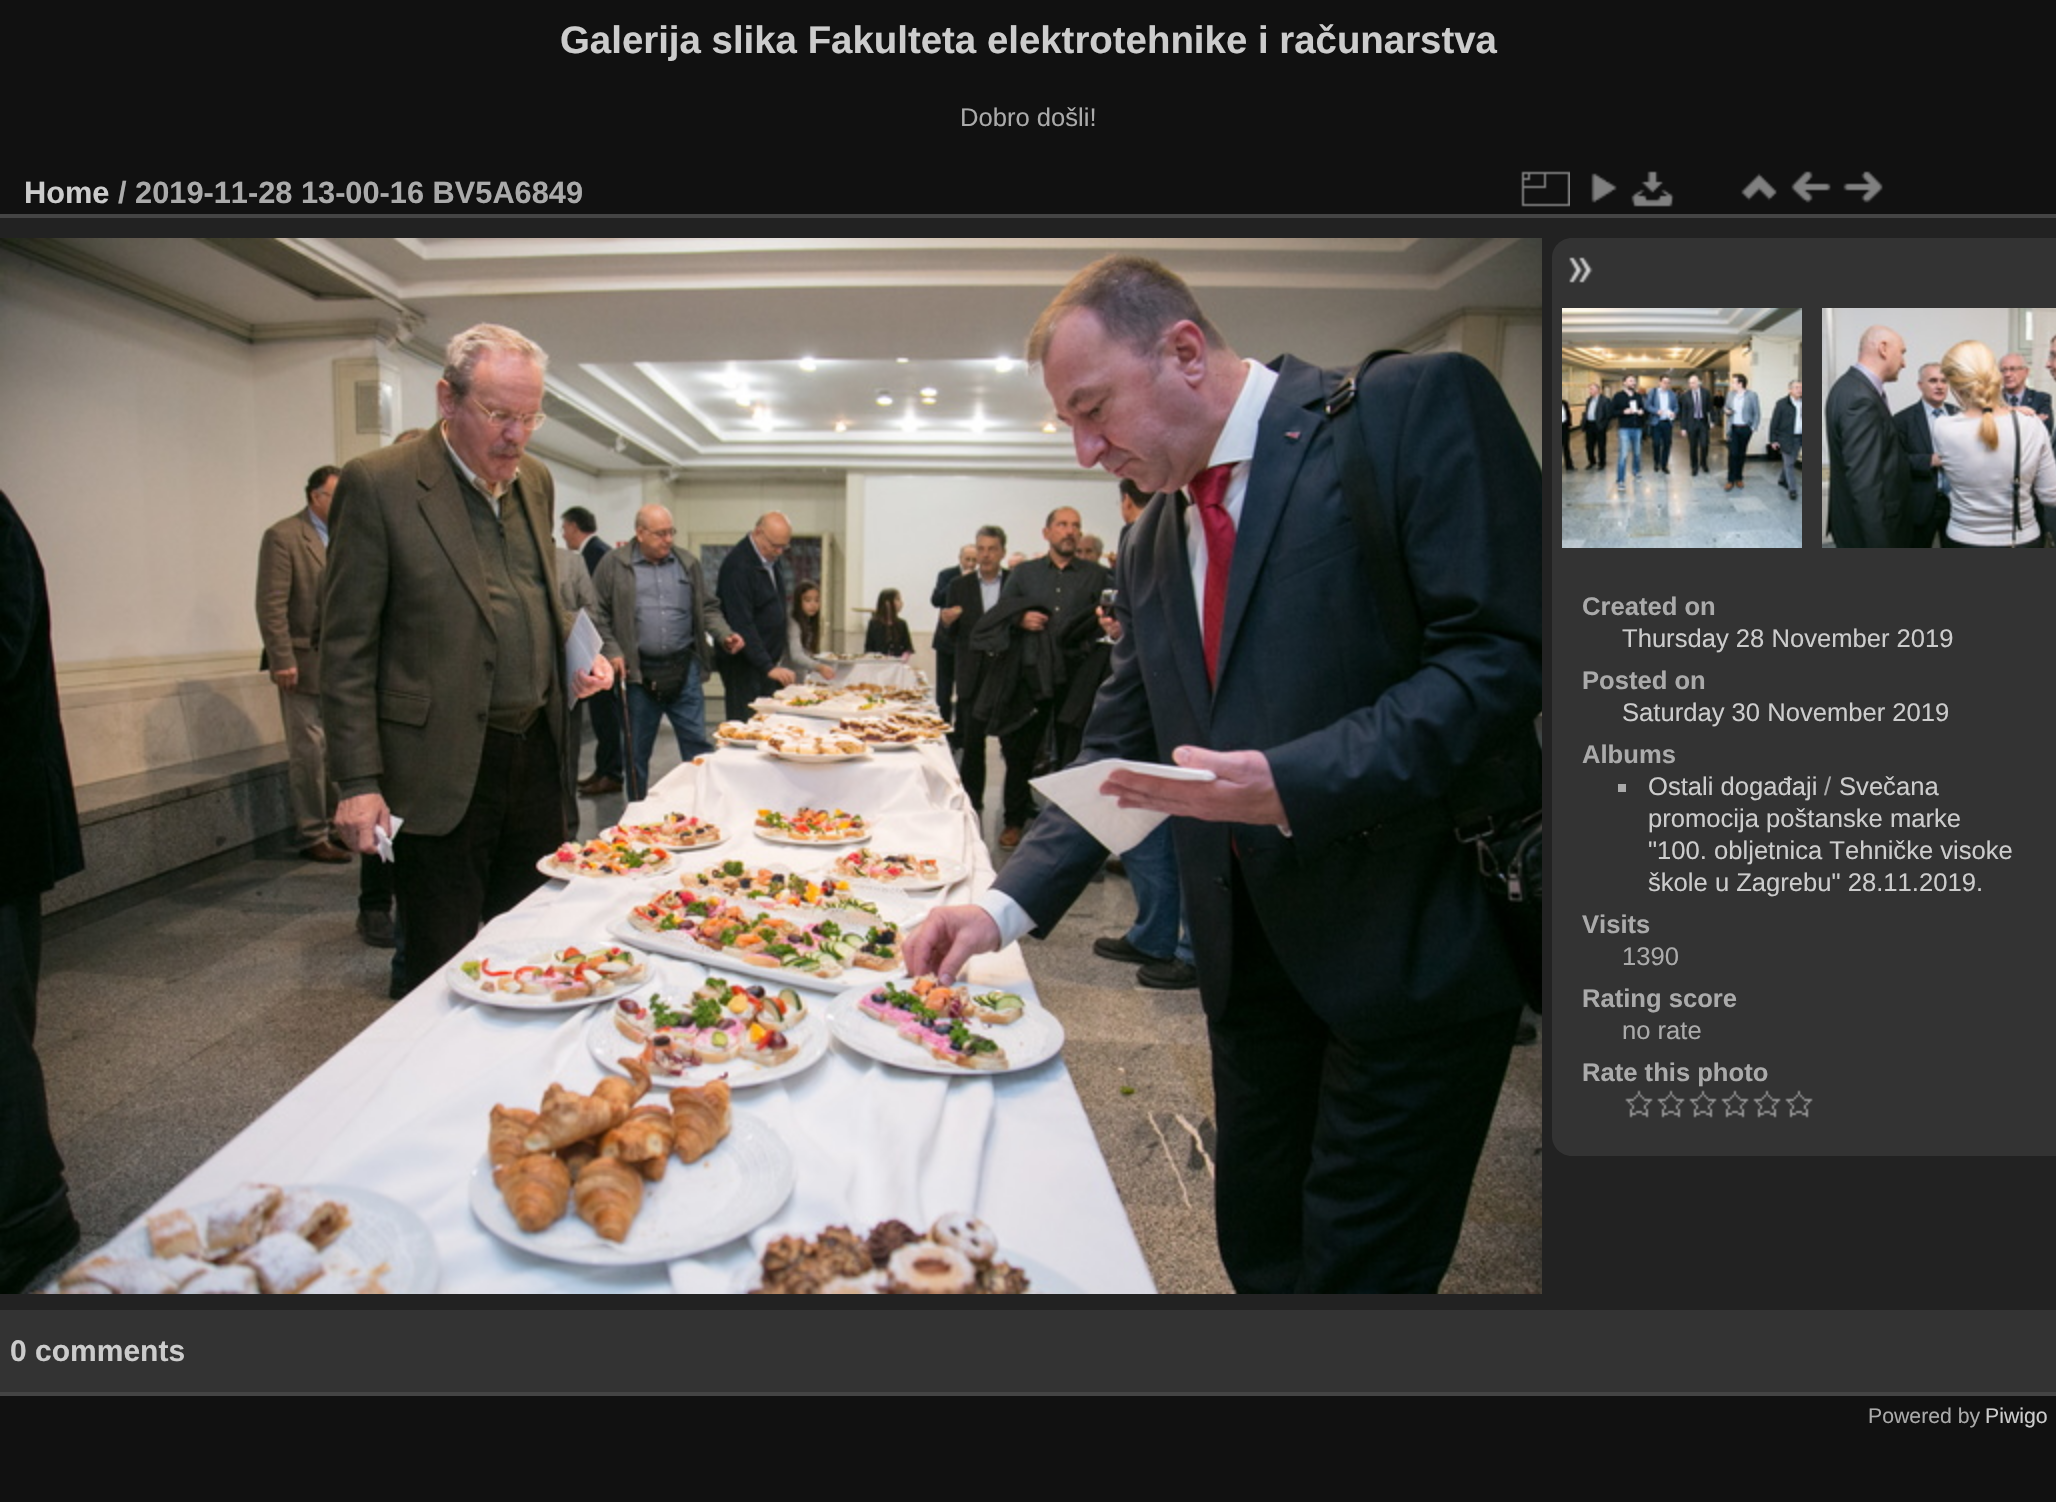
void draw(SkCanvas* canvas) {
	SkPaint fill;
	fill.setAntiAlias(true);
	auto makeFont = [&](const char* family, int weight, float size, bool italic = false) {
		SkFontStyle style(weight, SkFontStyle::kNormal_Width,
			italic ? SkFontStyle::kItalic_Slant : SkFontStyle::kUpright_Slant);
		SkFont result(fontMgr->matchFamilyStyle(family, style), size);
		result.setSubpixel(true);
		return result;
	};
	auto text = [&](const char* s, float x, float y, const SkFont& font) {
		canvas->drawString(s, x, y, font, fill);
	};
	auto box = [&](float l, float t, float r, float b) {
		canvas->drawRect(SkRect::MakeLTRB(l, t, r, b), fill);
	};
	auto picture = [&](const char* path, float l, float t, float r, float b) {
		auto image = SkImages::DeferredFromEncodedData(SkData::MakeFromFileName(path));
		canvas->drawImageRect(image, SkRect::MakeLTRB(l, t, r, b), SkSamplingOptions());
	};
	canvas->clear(0xFF111111);
	fill.setColor(0xFF222222);
	box(0, 218, 2056, 1310);
	fill.setColor(0xFF444444);
	box(0, 1392, 2056, 1396);
	box(0, 214, 2056, 218);
	picture("image0.png", 1521, 171, 1570, 207);
	picture("image1.png", 1591, 173, 1617, 203);
	picture("image2.png", 1631, 171, 1674, 207);
	picture("image3.png", 1741, 173, 1777, 201);
	picture("image4.png", 1791, 171, 1831, 203);
	picture("image5.png", 1843, 171, 1883, 203);
	picture("image6.png", 0, 238, 1542, 1294);
	fill.setColor(0xFF333333);
	canvas->drawPath(SkPathBuilder().moveTo(1572, 238).lineTo(2056, 238).lineTo(2056, 1156).lineTo(1572, 1156).cubicTo(1561, 1156, 1552, 1147, 1552, 1136).lineTo(1552, 258).cubicTo(1552, 247, 1561, 238, 1572, 238).close().detach(), fill);
	picture("image7.png", 1569, 257, 1593, 283);
	picture("image8.png", 1562, 308, 1802, 548);
	picture("image9.png", 1822, 308, 2056, 548);
	fill.setColor(0xFFAAAAAA);
	box(1618, 784, 1626, 792);
	picture("image10.png", 1625, 1090, 1653, 1118);
	picture("image10.png", 1657, 1090, 1685, 1118);
	picture("image10.png", 1689, 1090, 1717, 1118);
	picture("image10.png", 1721, 1090, 1749, 1118);
	picture("image10.png", 1753, 1090, 1781, 1118);
	picture("image10.png", 1785, 1090, 1813, 1118);
	fill.setColor(0xFF333333);
	box(0, 1310, 2056, 1392);
	auto font1 = makeFont("Liberation Sans", 700, 38.4f);
	fill.setColor(0xFFCCCCCC);
	text("Galerija slika Fakulteta elektrotehnike i računarstva", 560, 53, font1);
	auto font2 = makeFont("Liberation Sans", 400, 25.6f);
	fill.setColor(0xFFAAAAAA);
	text("Dobro došli!", 960, 126, font2);
	auto font3 = makeFont("Liberation Sans", 700, 30.75f);
	fill.setColor(0xFFCCCCCC);
	text("Home", 24, 203, font3);
	fill.setColor(0xFFAAAAAA);
	text("/ 2019-11-28 13-00-16 BV5A6849", 118, 203, font3);
	auto font4 = makeFont("Liberation Sans", 700, 25.6f);
	text("Created on", 1582, 615, font4);
	fill.setColor(0xFFCCCCCC);
	text("Thursday 28 November 2019", 1622, 647, font2);
	fill.setColor(0xFFAAAAAA);
	text("Posted on", 1582, 689, font4);
	fill.setColor(0xFFCCCCCC);
	text("Saturday 30 November 2019", 1622, 721, font2);
	fill.setColor(0xFFAAAAAA);
	text("Albums", 1582, 763, font4);
	fill.setColor(0xFFCCCCCC);
	text("Ostali događaji", 1648, 795, font2);
	fill.setColor(0xFFAAAAAA);
	text("/", 1824, 795, font2);
	fill.setColor(0xFFCCCCCC);
	text("Svečana", 1839, 795, font2);
	text("promocija poštanske marke", 1648, 827, font2);
	text("\"100. obljetnica Tehničke visoke", 1648, 859, font2);
	text("škole u Zagrebu\" 28.11.2019.", 1648, 891, font2);
	fill.setColor(0xFFAAAAAA);
	text("Visits", 1582, 933, font4);
	text("1390", 1622, 965, font2);
	text("Rating score", 1582, 1007, font4);
	text("no rate", 1622, 1039, font2);
	text("Rate this photo", 1582, 1081, font4);
	auto font5 = makeFont("Liberation Sans", 700, 30);
	fill.setColor(0xFFCCCCCC);
	text("0 comments", 10, 1361, font5);
	auto font6 = makeFont("Liberation Sans", 400, 21.25f);
	fill.setColor(0xFFAAAAAA);
	text("Powered by", 1868, 1423, font6);
	fill.setColor(0xFFCCCCCC);
	text("Piwigo", 1985, 1423, font6);
}
